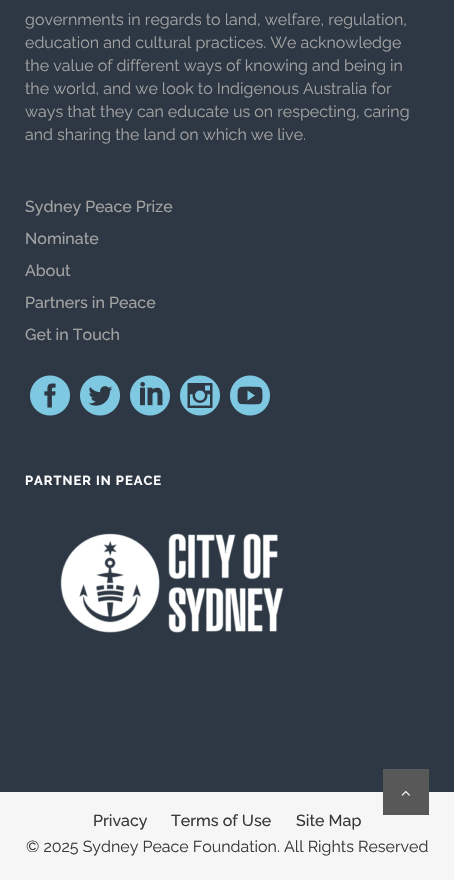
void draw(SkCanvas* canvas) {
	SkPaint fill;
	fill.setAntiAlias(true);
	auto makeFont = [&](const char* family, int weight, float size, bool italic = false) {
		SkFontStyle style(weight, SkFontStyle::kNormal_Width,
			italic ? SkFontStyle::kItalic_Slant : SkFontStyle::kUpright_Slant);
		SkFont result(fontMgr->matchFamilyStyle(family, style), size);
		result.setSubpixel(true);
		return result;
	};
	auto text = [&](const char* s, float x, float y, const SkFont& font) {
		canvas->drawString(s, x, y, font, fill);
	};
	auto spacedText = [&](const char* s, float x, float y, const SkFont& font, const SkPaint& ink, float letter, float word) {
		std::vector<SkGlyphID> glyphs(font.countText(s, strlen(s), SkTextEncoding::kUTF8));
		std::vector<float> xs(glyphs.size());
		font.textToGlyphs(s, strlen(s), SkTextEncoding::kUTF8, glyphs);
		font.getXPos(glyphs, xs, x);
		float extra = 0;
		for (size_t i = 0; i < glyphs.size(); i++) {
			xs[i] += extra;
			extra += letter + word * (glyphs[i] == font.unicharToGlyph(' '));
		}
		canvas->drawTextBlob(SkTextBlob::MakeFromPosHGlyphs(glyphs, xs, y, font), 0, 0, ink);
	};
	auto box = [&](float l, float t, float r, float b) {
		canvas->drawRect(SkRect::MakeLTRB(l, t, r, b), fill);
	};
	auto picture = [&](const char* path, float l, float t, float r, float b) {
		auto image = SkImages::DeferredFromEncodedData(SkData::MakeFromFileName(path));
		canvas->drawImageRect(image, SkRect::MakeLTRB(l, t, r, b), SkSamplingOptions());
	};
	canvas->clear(0xFF2D3844);
	picture("image0.png", 30, 375, 70, 416);
	picture("image1.png", 80, 375, 120, 416);
	picture("image2.png", 130, 375, 170, 416);
	picture("image3.png", 180, 375, 220, 416);
	picture("image4.png", 230, 375, 270, 416);
	picture("image5.png", 60, 533, 284, 633);
	fill.setColor(0xFFF6F6F6);
	box(0, 792, 454, 880);
	fill.setColor(0xFF585858);
	box(383, 769, 429, 815);
	picture("image6.png", 401, 790, 410, 796);
	auto font1 = makeFont("Raleway", 400, 16);
	fill.setColor(0xFFA2A2A2);
	text("governments in regards to land, welfare, regulation,", 25, 25, font1);
	text("education and cultural practices. We acknowledge", 25, 48, font1);
	text("the value of different ways of knowing and being in", 25, 71, font1);
	text("the world, and we look to Indigenous Australia for", 25, 94, font1);
	text("ways that they can educate us on respecting, caring", 25, 117, font1);
	text("and sharing the land on which we live.", 25, 140, font1);
	auto font2 = makeFont("Raleway", 500, 16);
	text("Sydney Peace Prize", 25, 212, font2);
	text("Nominate", 25, 244, font2);
	text("About", 25, 276, font2);
	text("Partners in Peace", 25, 308, font2);
	text("Get in Touch", 25, 340, font2);
	auto font3 = makeFont("Raleway", 700, 13);
	fill.setColor(0xFFFFFFFF);
	spacedText("PARTNER IN PEACE", 25, 485, font3, fill, 1, 0);
	fill.setColor(0xFF393939);
	text("Privacy", 93, 826, font2);
	text("Terms of Use", 171, 826, font2);
	text("Site Map", 296, 826, font2);
	text("© 2025 Sydney Peace Foundation. All Rights Reserved", 26, 852, font1);
}
